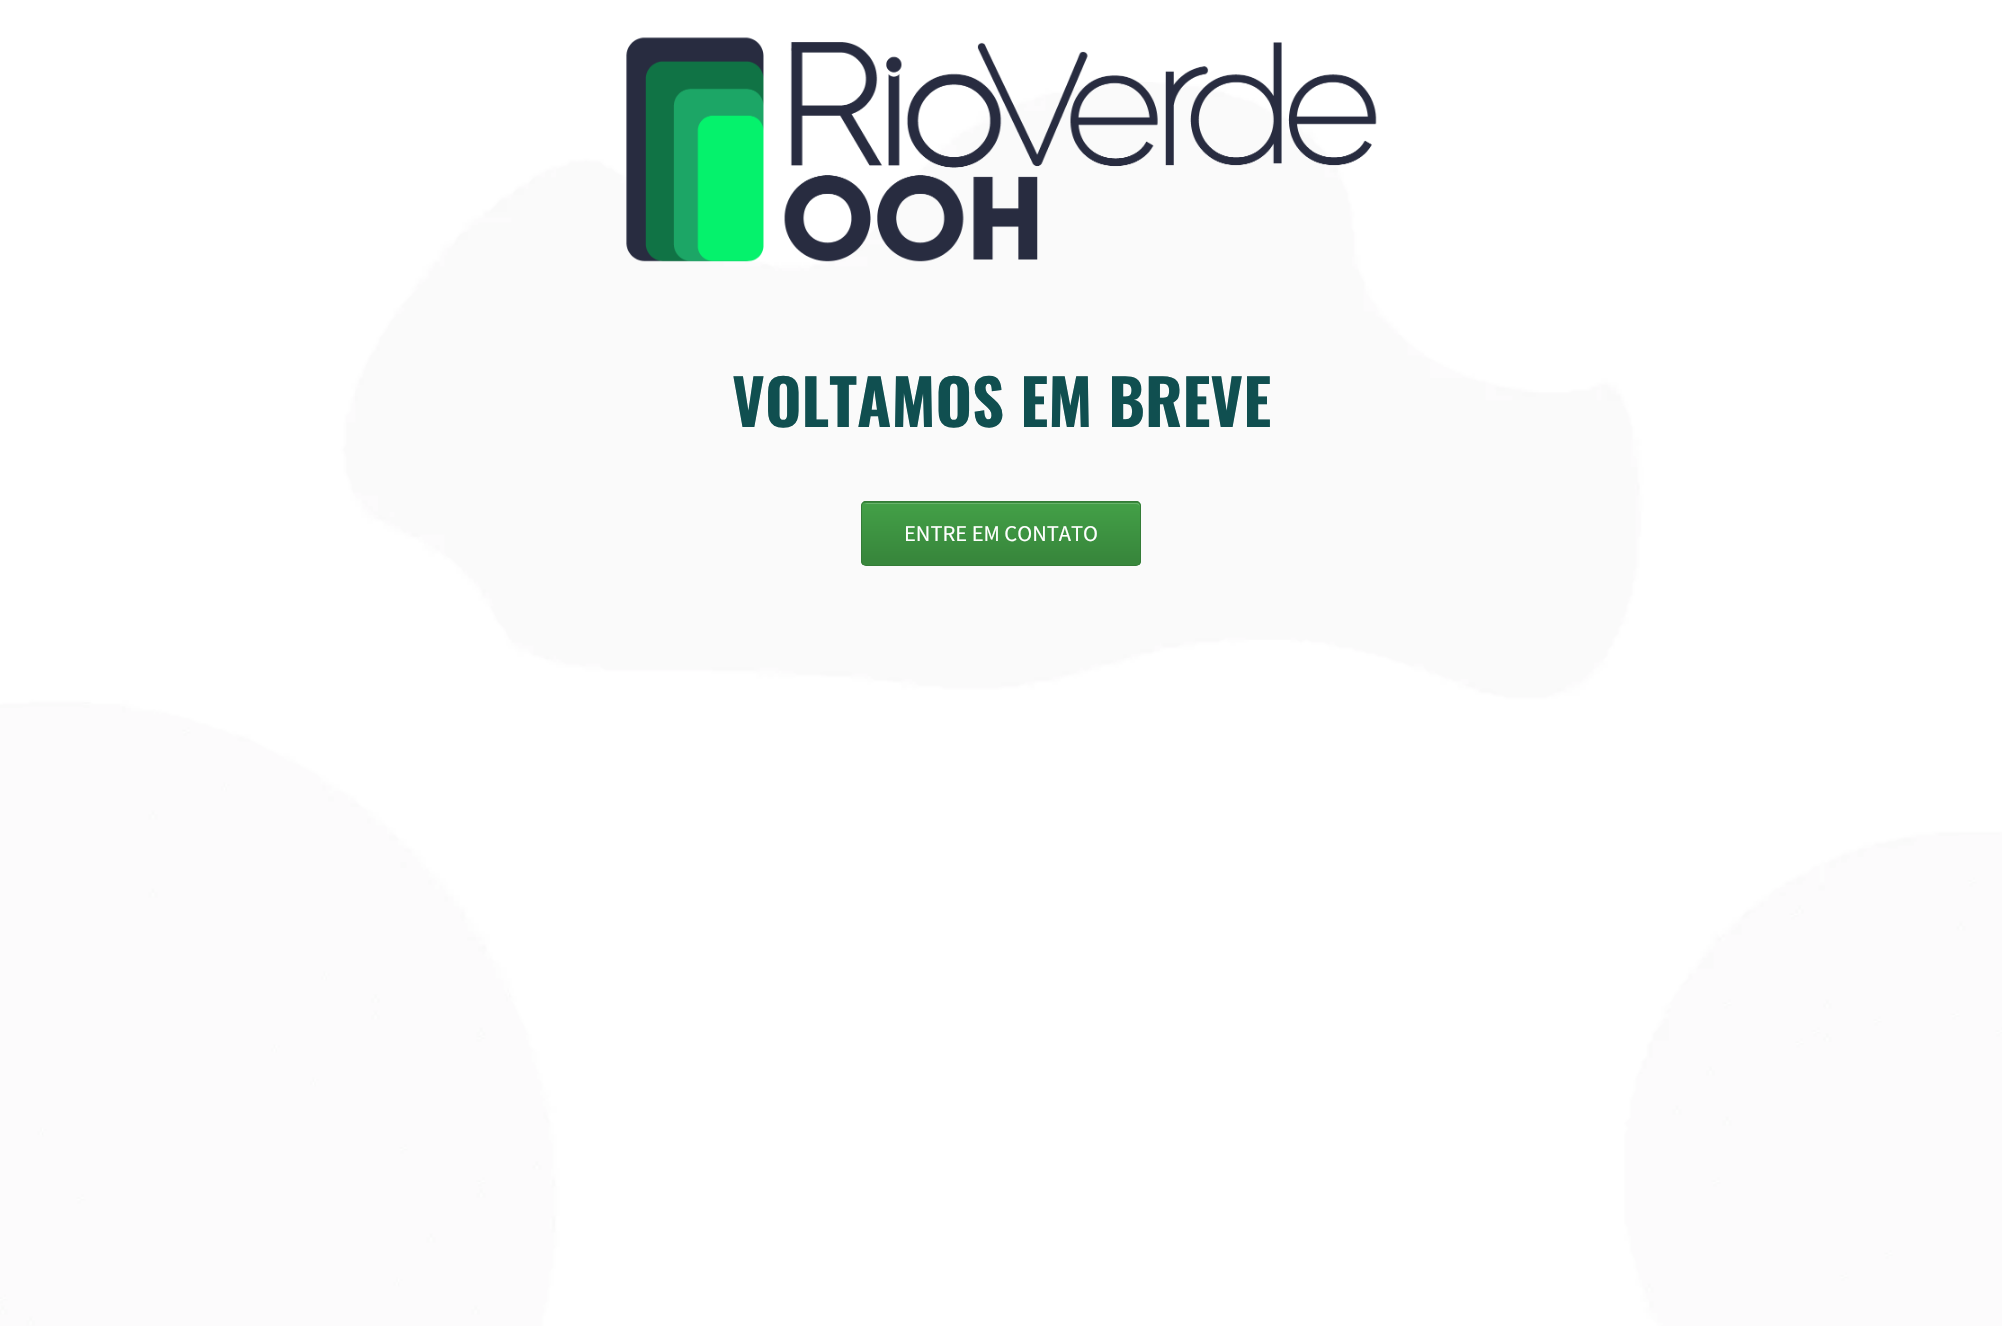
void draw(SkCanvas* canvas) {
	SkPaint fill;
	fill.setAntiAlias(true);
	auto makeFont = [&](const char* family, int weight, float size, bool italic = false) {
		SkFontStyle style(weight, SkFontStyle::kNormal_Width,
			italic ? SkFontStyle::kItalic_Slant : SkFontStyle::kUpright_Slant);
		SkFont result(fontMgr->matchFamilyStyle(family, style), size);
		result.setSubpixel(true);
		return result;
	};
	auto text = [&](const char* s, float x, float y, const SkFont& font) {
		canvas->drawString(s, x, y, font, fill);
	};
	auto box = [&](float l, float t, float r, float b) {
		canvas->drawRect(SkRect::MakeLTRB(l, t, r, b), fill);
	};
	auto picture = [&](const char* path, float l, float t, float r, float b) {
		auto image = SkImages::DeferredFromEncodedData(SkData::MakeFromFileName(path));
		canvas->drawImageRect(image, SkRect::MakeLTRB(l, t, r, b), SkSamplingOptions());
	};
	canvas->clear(0xFFFFFFFF);
	picture("image0.png", 0, 82, 2002, 1326);
	picture("image1.png", 626, 37, 1377, 262);
	canvas->save();
	canvas->clipPath(SkPathBuilder().moveTo(866, 501).lineTo(1136, 501).cubicTo(1139, 501, 1141, 503, 1141, 506).lineTo(1141, 561).cubicTo(1141, 564, 1139, 566, 1136, 566).lineTo(866, 566).cubicTo(863, 566, 861, 564, 861, 561).lineTo(861, 506).cubicTo(861, 503, 863, 501, 866, 501).close().detach(), true);
	{
		const SkColor colors[] = {0xFF43A047, 0xFF38873C};
		const float stops[] = {0, 0.9f};
		const SkPoint ends[] = {{1001, 440}, {1001, 503}};
		fill.setShader(SkGradientShader::MakeLinear(ends, colors, stops, 2, SkTileMode::kClamp));
		fill.setAlpha(255);
	}
	box(861, 501, 1141, 503);
	{
		const SkColor colors[] = {0xFF43A047, 0xFF38873C};
		const float stops[] = {0, 0.9f};
		const SkPoint ends[] = {{1001, 503}, {1001, 565}};
		fill.setShader(SkGradientShader::MakeLinear(ends, colors, stops, 2, SkTileMode::kClamp));
		fill.setAlpha(255);
	}
	box(861, 503, 1141, 565);
	canvas->restore();
	fill.setShader(nullptr);
	fill.setColor(0xFF69B36C);
	canvas->drawPath(SkPathBuilder().moveTo(866, 504).lineTo(1136, 504).cubicTo(1138, 504, 1140, 505, 1140, 508).cubicTo(1140, 505, 1139, 503, 1136, 503).lineTo(867, 503).lineTo(864, 504).close().detach(), fill);
	fill.setStyle(SkPaint::kStroke_Style);
	fill.setStrokeWidth(1);
	fill.setColor(0xFF347C37);
	canvas->drawRoundRect(SkRect::MakeLTRB(861.5f, 501.5f, 1140.5f, 565.5f), 4.5f, 4.5f, fill);
	auto font1 = makeFont("Oswald", 700, 62.5f);
	fill.setStyle(SkPaint::kFill_Style);
	fill.setColor(0xFF104F50);
	text("VOLTAMOS EM BREVE", 732, 427, font1);
	auto font2 = makeFont("Source Sans Pro", 400, 22.5f);
	fill.setColor(0xFFFFFFFF);
	text("ENTRE EM CONTATO", 904, 541, font2);
}
